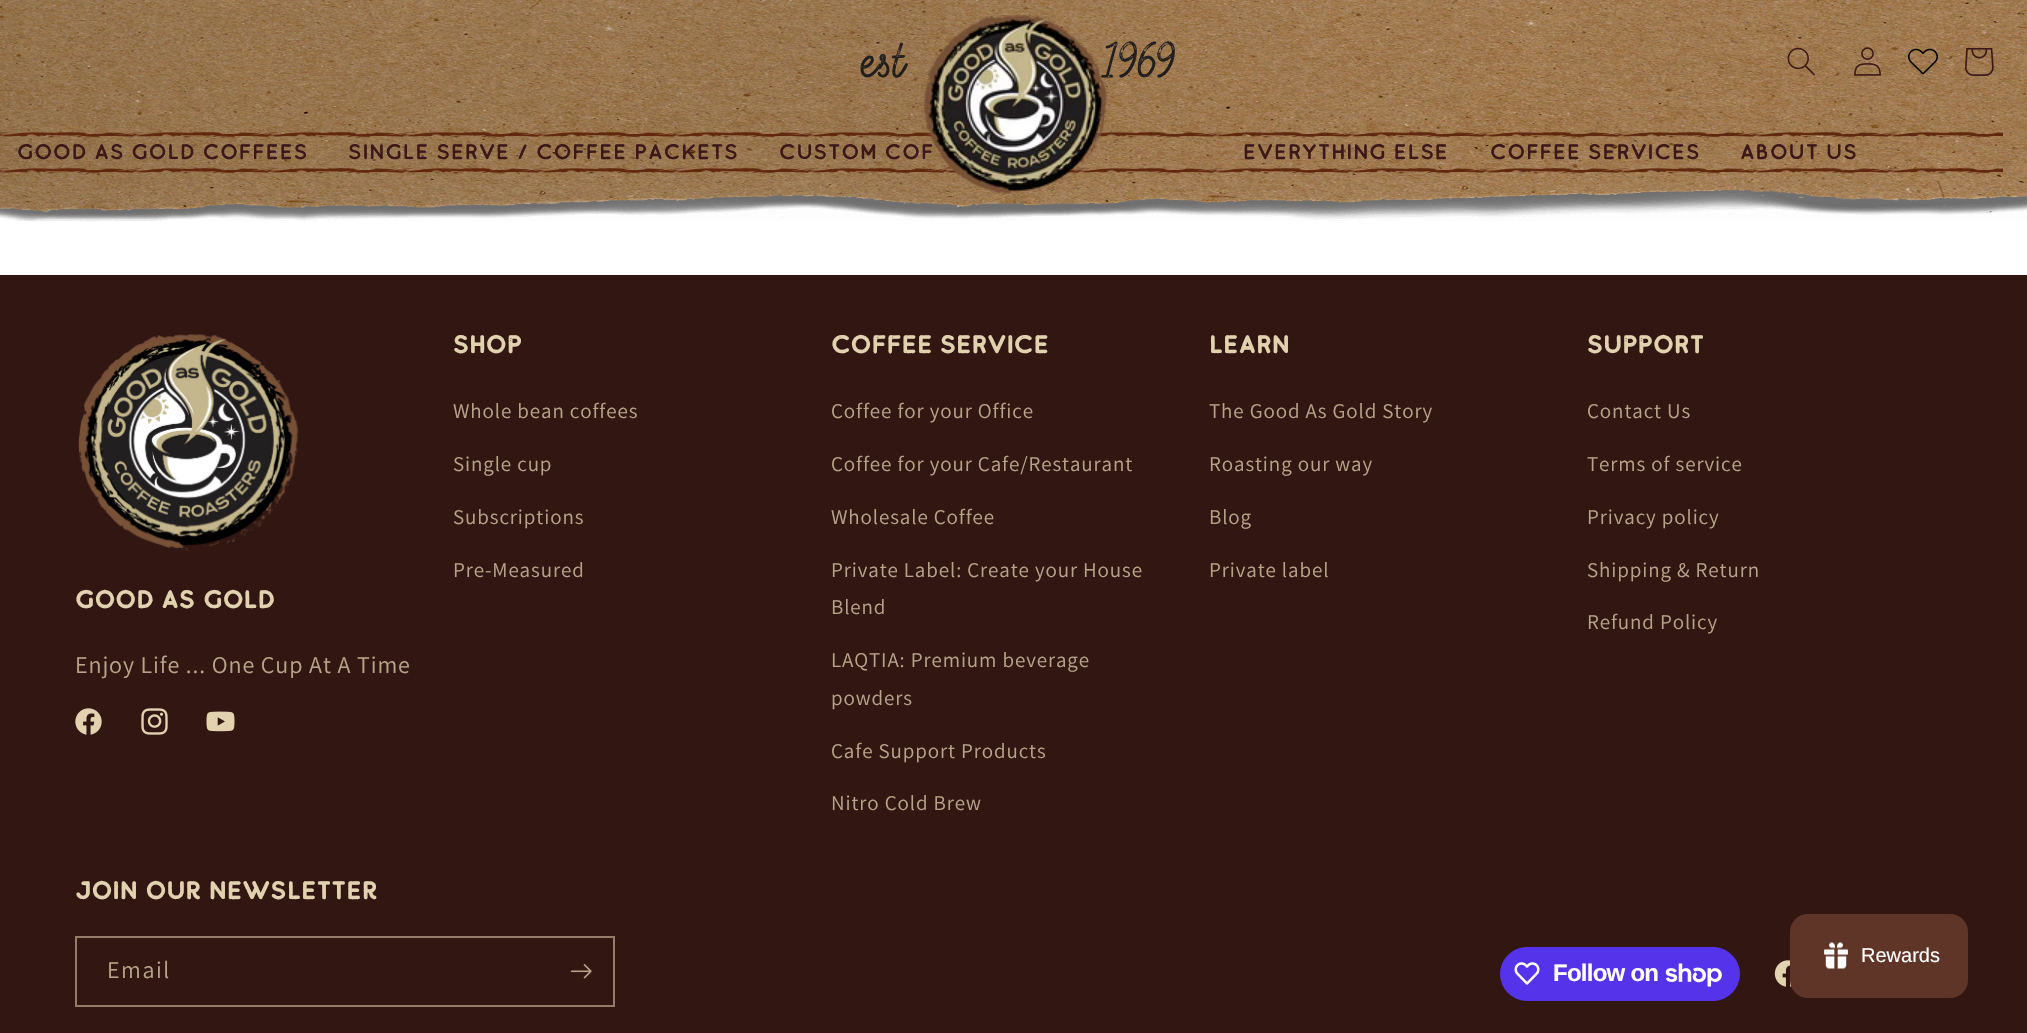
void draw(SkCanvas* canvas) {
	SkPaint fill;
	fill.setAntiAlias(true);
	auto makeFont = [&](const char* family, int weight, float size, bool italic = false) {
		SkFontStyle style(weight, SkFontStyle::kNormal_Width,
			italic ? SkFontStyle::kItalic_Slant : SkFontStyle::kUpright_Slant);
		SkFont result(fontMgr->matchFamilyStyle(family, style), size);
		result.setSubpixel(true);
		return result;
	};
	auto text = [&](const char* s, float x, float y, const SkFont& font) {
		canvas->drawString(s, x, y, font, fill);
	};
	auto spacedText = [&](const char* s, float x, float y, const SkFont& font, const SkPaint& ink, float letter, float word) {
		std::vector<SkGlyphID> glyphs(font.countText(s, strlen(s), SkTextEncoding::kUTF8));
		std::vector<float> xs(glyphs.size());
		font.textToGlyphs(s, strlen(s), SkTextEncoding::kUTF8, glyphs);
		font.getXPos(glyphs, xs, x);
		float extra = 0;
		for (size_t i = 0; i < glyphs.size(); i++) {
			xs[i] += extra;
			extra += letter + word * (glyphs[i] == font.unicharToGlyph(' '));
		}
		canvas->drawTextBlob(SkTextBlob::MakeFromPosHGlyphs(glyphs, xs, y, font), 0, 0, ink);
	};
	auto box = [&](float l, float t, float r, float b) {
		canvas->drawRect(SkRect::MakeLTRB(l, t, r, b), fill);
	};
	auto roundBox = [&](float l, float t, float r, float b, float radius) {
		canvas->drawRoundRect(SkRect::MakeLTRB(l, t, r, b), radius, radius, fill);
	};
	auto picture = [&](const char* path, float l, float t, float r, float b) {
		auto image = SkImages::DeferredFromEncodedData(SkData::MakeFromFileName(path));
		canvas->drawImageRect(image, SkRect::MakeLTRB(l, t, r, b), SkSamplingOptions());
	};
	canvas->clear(0xFFFFFFFF);
	picture("image0.png", 0, 0, 2027, 221);
	picture("image2.png", 1787, 47, 1815, 76);
	picture("image3.png", 1854, 47, 1881, 76);
	picture("image4.png", 1908, 48, 1938, 75);
	picture("image5.png", 1965, 48, 1994, 76);
	picture("image6.png", 0, 131, 2003, 138);
	picture("image7.png", 0, 167, 2003, 174);
	fill.setColor(0xFF311612);
	box(0, 275, 2027, 1033);
	picture("image8.png", 78, 334, 299, 551);
	picture("image9.png", 75, 708, 102, 735);
	picture("image10.png", 141, 708, 168, 735);
	picture("image11.png", 206, 711, 235, 732);
	fill.setStyle(SkPaint::kStroke_Style);
	fill.setStrokeWidth(2);
	fill.setColor(0xFF937D69);
	canvas->drawRect(SkRect::MakeLTRB(76, 937, 614, 1006), fill);
	picture("image12.png", 570, 964, 592, 979);
	fill.setStyle(SkPaint::kFill_Style);
	fill.setColor(0xFF5433EB);
	roundBox(1500, 947, 1740, 1001, 27);
	picture("image13.png", 1514, 962, 1540, 985);
	picture("image14.png", 1665, 963, 1722, 987);
	picture("image15.png", 1774, 960, 1792, 987);
	fill.setColor(0xFF5F3527);
	roundBox(1790, 914, 1968, 998, 18);
	picture("image16.png", 1824, 942, 1848, 969);
	auto font1 = makeFont("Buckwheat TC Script", 400, 60);
	fill.setColor(0xFF211E1E);
	spacedText("est", 861, 77, font1, fill, 0.9f, 0);
	auto font2 = makeFont("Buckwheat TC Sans", 400, 21);
	fill.setColor(0xFF3C1818);
	spacedText("GOOD AS GOLD COFFEES", 17, 159, font2, fill, 0.9f, 0);
	spacedText("SINGLE SERVE / COFFEE PACKETS", 348, 159, font2, fill, 0.9f, 0);
	spacedText("CUSTOM COF", 779, 159, font2, fill, 0.9f, 0);
	picture("image1.png", 923, 15, 1108, 195);
	fill.setColor(0xFF211E1E);
	spacedText("1969", 1102, 77, font1, fill, 0.9f, 0);
	fill.setColor(0xFF3C1818);
	spacedText("EVERYTHING ELSE", 1243, 159, font2, fill, 0.9f, 0);
	spacedText("COFFEE SERVICES", 1490, 159, font2, fill, 0.9f, 0);
	spacedText("ABOUT US", 1740, 159, font2, fill, 0.9f, 0);
	auto font3 = makeFont("Buckwheat TC Sans", 700, 24);
	fill.setColor(0xFFE3D2B0);
	spacedText("Good As Gold", 75, 608, font3, fill, 0.6f, 0);
	auto font4 = makeFont("Assistant", 400, 24);
	fill.setColor(0xFFB7A389);
	spacedText("Enjoy Life ... One Cup At A Time", 75, 673, font4, fill, 0.9f, 0);
	fill.setColor(0xFFE3D2B0);
	spacedText("SHOP", 453, 353, font3, fill, 0.6f, 0);
	auto font5 = makeFont("Assistant", 400, 21);
	fill.setColor(0xFFB7A389);
	spacedText("Whole bean coffees", 453, 418, font5, fill, 0.9f, 0);
	spacedText("Single cup", 453, 471, font5, fill, 0.9f, 0);
	spacedText("Subscriptions", 453, 524, font5, fill, 0.9f, 0);
	spacedText("Pre-Measured", 453, 577, font5, fill, 0.9f, 0);
	fill.setColor(0xFFE3D2B0);
	spacedText("COFFEE SERVICE", 831, 353, font3, fill, 0.6f, 0);
	fill.setColor(0xFFB7A389);
	spacedText("Coffee for your Office", 831, 418, font5, fill, 0.9f, 0);
	spacedText("Coffee for your Cafe/Restaurant", 831, 471, font5, fill, 0.9f, 0);
	spacedText("Wholesale Coffee", 831, 524, font5, fill, 0.9f, 0);
	spacedText("Private Label: Create your House", 831, 577, font5, fill, 0.9f, 0);
	spacedText("Blend", 831, 614, font5, fill, 0.9f, 0);
	spacedText("LAQTIA: Premium beverage", 831, 667, font5, fill, 0.9f, 0);
	spacedText("powders", 831, 705, font5, fill, 0.9f, 0);
	spacedText("Cafe Support Products", 831, 758, font5, fill, 0.9f, 0);
	spacedText("Nitro Cold Brew", 831, 810, font5, fill, 0.9f, 0);
	fill.setColor(0xFFE3D2B0);
	spacedText("LEARN", 1209, 353, font3, fill, 0.6f, 0);
	fill.setColor(0xFFB7A389);
	spacedText("The Good As Gold Story", 1209, 418, font5, fill, 0.9f, 0);
	spacedText("Roasting our way", 1209, 471, font5, fill, 0.9f, 0);
	spacedText("Blog", 1209, 524, font5, fill, 0.9f, 0);
	spacedText("Private label", 1209, 577, font5, fill, 0.9f, 0);
	fill.setColor(0xFFE3D2B0);
	spacedText("SUPPORT", 1587, 353, font3, fill, 0.6f, 0);
	fill.setColor(0xFFB7A389);
	spacedText("Contact Us", 1587, 418, font5, fill, 0.9f, 0);
	spacedText("Terms of service", 1587, 471, font5, fill, 0.9f, 0);
	spacedText("Privacy policy", 1587, 524, font5, fill, 0.9f, 0);
	spacedText("Shipping & Return", 1587, 577, font5, fill, 0.9f, 0);
	spacedText("Refund Policy", 1587, 629, font5, fill, 0.9f, 0);
	fill.setColor(0xFFE3D2B0);
	spacedText("Join Our Newsletter", 75, 899, font3, fill, 0.6f, 0);
	fill.setColor(0xFFB7A389);
	spacedText("Email", 107, 978, font4, fill, 1.5f, 0);
	auto font6 = makeFont("Liberation Sans", 700, 24);
	fill.setColor(0xFFFFFFFF);
	spacedText("Follow on", 1553, 981, font6, fill, -0.75f, 0);
	auto font7 = makeFont("Liberation Sans", 400, 20);
	text("Rewards", 1861, 962, font7);
}
